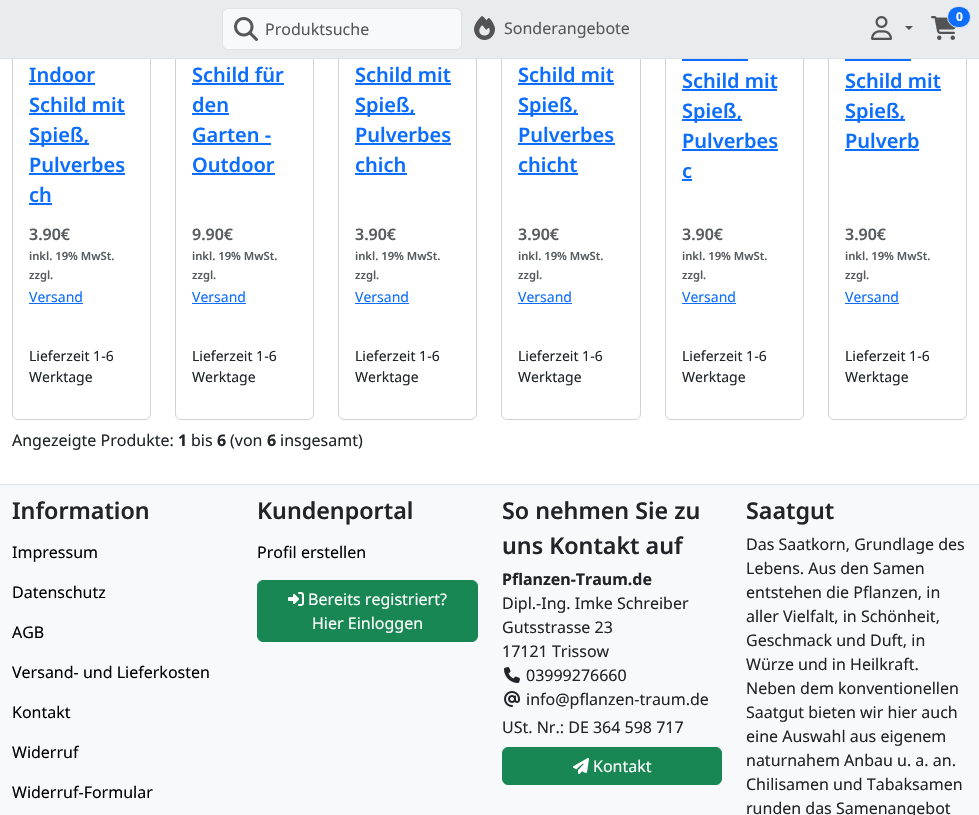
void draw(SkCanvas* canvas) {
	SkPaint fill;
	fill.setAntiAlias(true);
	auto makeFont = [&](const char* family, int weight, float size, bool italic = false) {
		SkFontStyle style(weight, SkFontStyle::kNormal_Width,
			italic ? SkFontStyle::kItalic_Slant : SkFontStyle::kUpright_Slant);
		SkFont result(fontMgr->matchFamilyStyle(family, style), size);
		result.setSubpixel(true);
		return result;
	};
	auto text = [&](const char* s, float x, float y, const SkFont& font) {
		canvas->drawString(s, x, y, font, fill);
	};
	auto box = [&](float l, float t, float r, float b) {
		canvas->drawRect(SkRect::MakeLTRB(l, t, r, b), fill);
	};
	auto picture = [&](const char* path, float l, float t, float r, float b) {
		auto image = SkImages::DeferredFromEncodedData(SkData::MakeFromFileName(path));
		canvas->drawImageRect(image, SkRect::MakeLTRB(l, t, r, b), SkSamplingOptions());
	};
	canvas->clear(0xFFFFFFFF);
	fill.setStyle(SkPaint::kStroke_Style);
	fill.setStrokeWidth(1);
	fill.setColor(0xFFD2D2D2);
	canvas->drawRoundRect(SkRect::MakeLTRB(12.5f, -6.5f, 150.5f, 419.5f), 5.5f, 5.5f, fill);
	canvas->drawRoundRect(SkRect::MakeLTRB(175.5f, -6.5f, 313.5f, 419.5f), 5.5f, 5.5f, fill);
	canvas->drawRoundRect(SkRect::MakeLTRB(338.5f, -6.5f, 476.5f, 419.5f), 5.5f, 5.5f, fill);
	canvas->drawRoundRect(SkRect::MakeLTRB(501.5f, -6.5f, 640.5f, 419.5f), 5.5f, 5.5f, fill);
	canvas->drawRoundRect(SkRect::MakeLTRB(665.5f, -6.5f, 803.5f, 419.5f), 5.5f, 5.5f, fill);
	canvas->drawRoundRect(SkRect::MakeLTRB(828.5f, -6.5f, 966.5f, 419.5f), 5.5f, 5.5f, fill);
	fill.setStyle(SkPaint::kFill_Style);
	fill.setColor(0xFFE9ECEF);
	box(0, 0, 979, 58);
	fill.setColor(0xFFDEE2E6);
	box(0, 58, 979, 59);
	picture("image0.png", 871, 16, 892, 40);
	fill.setColor(0xFF525354);
	canvas->drawPath(SkPathBuilder().moveTo(905, 26).lineTo(913, 26).lineTo(909, 30).close().detach(), fill);
	picture("image1.png", 931, 16, 956, 40);
	fill.setColor(0xFF0D6EFD);
	canvas->drawRoundRect(SkRect::MakeLTRB(947.5f, 6.5f, 970.5f, 27.5f), 10.5f, 10.5f, fill);
	fill.setStyle(SkPaint::kStroke_Style);
	fill.setColor(0xFFDEE2E6);
	canvas->drawRoundRect(SkRect::MakeLTRB(947.5f, 6.5f, 970.5f, 27.5f), 10.5f, 10.5f, fill);
	fill.setStyle(SkPaint::kFill_Style);
	fill.setColor(0xFFF8F9FA);
	canvas->drawRoundRect(SkRect::MakeLTRB(222.5f, 8.5f, 461.5f, 49.5f), 5.5f, 5.5f, fill);
	fill.setStyle(SkPaint::kStroke_Style);
	fill.setColor(0xFFDEE2E6);
	canvas->drawRoundRect(SkRect::MakeLTRB(222.5f, 8.5f, 461.5f, 49.5f), 5.5f, 5.5f, fill);
	picture("image2.png", 234, 17, 258, 41);
	picture("image3.png", 474, 16, 495, 40);
	fill.setStyle(SkPaint::kFill_Style);
	fill.setColor(0xFF0D6EFD);
	box(29, 83, 95, 85);
	box(29, 113, 125, 115);
	box(29, 143, 89, 145);
	box(29, 173, 125, 175);
	box(29, 203, 52, 205);
	box(29, 303, 83, 304);
	box(192, 83, 284, 85);
	box(192, 113, 229, 115);
	box(192, 143, 271, 145);
	box(192, 173, 275, 175);
	box(192, 303, 246, 304);
	box(355, 83, 451, 85);
	box(355, 113, 415, 115);
	box(355, 143, 451, 145);
	box(355, 173, 407, 175);
	box(355, 303, 409, 304);
	box(518, 83, 614, 85);
	box(518, 113, 578, 115);
	box(518, 143, 615, 145);
	box(518, 173, 578, 175);
	box(518, 303, 572, 304);
	box(682, 59, 748, 61);
	box(682, 89, 777, 91);
	box(682, 119, 742, 121);
	box(682, 149, 778, 151);
	box(682, 179, 692, 181);
	box(682, 303, 736, 304);
	box(845, 59, 911, 61);
	box(845, 89, 941, 91);
	box(845, 119, 905, 121);
	box(845, 149, 919, 151);
	box(845, 303, 899, 304);
	fill.setColor(0xFFF8F9FA);
	box(0, 485, 979, 815);
	fill.setColor(0xFFDEE2E6);
	box(0, 484, 979, 485);
	fill.setColor(0xFF198754);
	canvas->drawRoundRect(SkRect::MakeLTRB(257.5f, 580.5f, 477.5f, 641.5f), 5.5f, 5.5f, fill);
	fill.setStyle(SkPaint::kStroke_Style);
	canvas->drawRoundRect(SkRect::MakeLTRB(257.5f, 580.5f, 477.5f, 641.5f), 5.5f, 5.5f, fill);
	picture("image4.png", 288, 592, 304, 606);
	picture("image5.png", 504, 667, 520, 683);
	picture("image6.png", 504, 691, 520, 707);
	fill.setStyle(SkPaint::kFill_Style);
	canvas->drawRoundRect(SkRect::MakeLTRB(502.5f, 747.5f, 721.5f, 784.5f), 5.5f, 5.5f, fill);
	fill.setStyle(SkPaint::kStroke_Style);
	canvas->drawRoundRect(SkRect::MakeLTRB(502.5f, 747.5f, 721.5f, 784.5f), 5.5f, 5.5f, fill);
	picture("image7.png", 573, 758, 589, 774);
	auto font1 = makeFont("Noto Sans", 700, 12);
	fill.setStyle(SkPaint::kFill_Style);
	fill.setColor(0xFFFFFFFF);
	text("0", 956, 21, font1);
	auto font2 = makeFont("Noto Sans", 400, 16);
	fill.setColor(0xFF575758);
	text("Produktsuche", 265, 35, font2);
	text("Sonderangebote", 504, 34, font2);
	auto font3 = makeFont("Noto Sans", 600, 20);
	fill.setColor(0xFF0D6EFD);
	text("Indoor", 29, 82, font3);
	text("Schild mit", 29, 112, font3);
	text("Spieß,", 29, 142, font3);
	text("Pulverbes", 29, 172, font3);
	text("ch", 29, 202, font3);
	auto font4 = makeFont("Noto Sans", 600, 16);
	fill.setColor(0xFF595C5F);
	text("3.90€", 29, 240, font4);
	auto font5 = makeFont("Noto Sans", 600, 11.25f);
	text("inkl. 19% MwSt.", 29, 260, font5);
	text("zzgl.", 29, 279, font5);
	auto font6 = makeFont("Noto Sans", 400, 14);
	fill.setColor(0xFF0D6EFD);
	text("Versand", 29, 302, font6);
	fill.setColor(0xFF212529);
	text("Lieferzeit 1-6", 29, 361, font6);
	text("Werktage", 29, 382, font6);
	fill.setColor(0xFF0D6EFD);
	text("Schild für", 192, 82, font3);
	text("den", 192, 112, font3);
	text("Garten -", 192, 142, font3);
	text("Outdoor", 192, 172, font3);
	fill.setColor(0xFF595C5F);
	text("9.90€", 192, 240, font4);
	text("inkl. 19% MwSt.", 192, 260, font5);
	text("zzgl.", 192, 279, font5);
	fill.setColor(0xFF0D6EFD);
	text("Versand", 192, 302, font6);
	fill.setColor(0xFF212529);
	text("Lieferzeit 1-6", 192, 361, font6);
	text("Werktage", 192, 382, font6);
	fill.setColor(0xFF0D6EFD);
	text("Schild mit", 355, 82, font3);
	text("Spieß,", 355, 112, font3);
	text("Pulverbes", 355, 142, font3);
	text("chich", 355, 172, font3);
	fill.setColor(0xFF595C5F);
	text("3.90€", 355, 240, font4);
	text("inkl. 19% MwSt.", 355, 260, font5);
	text("zzgl.", 355, 279, font5);
	fill.setColor(0xFF0D6EFD);
	text("Versand", 355, 302, font6);
	fill.setColor(0xFF212529);
	text("Lieferzeit 1-6", 355, 361, font6);
	text("Werktage", 355, 382, font6);
	fill.setColor(0xFF0D6EFD);
	text("Schild mit", 518, 82, font3);
	text("Spieß,", 518, 112, font3);
	text("Pulverbes", 518, 142, font3);
	text("chicht", 518, 172, font3);
	fill.setColor(0xFF595C5F);
	text("3.90€", 518, 240, font4);
	text("inkl. 19% MwSt.", 518, 260, font5);
	text("zzgl.", 518, 279, font5);
	fill.setColor(0xFF0D6EFD);
	text("Versand", 518, 302, font6);
	fill.setColor(0xFF212529);
	text("Lieferzeit 1-6", 518, 361, font6);
	text("Werktage", 518, 382, font6);
	fill.setColor(0xFF0D6EFD);
	text("Schild mit", 682, 88, font3);
	text("Spieß,", 682, 118, font3);
	text("Pulverbes", 682, 148, font3);
	text("c", 682, 178, font3);
	fill.setColor(0xFF595C5F);
	text("3.90€", 682, 240, font4);
	text("inkl. 19% MwSt.", 682, 260, font5);
	text("zzgl.", 682, 279, font5);
	fill.setColor(0xFF0D6EFD);
	text("Versand", 682, 302, font6);
	fill.setColor(0xFF212529);
	text("Lieferzeit 1-6", 682, 361, font6);
	text("Werktage", 682, 382, font6);
	fill.setColor(0xFF0D6EFD);
	text("Schild mit", 845, 88, font3);
	text("Spieß,", 845, 118, font3);
	text("Pulverb", 845, 148, font3);
	fill.setColor(0xFF595C5F);
	text("3.90€", 845, 240, font4);
	text("inkl. 19% MwSt.", 845, 260, font5);
	text("zzgl.", 845, 279, font5);
	fill.setColor(0xFF0D6EFD);
	text("Versand", 845, 302, font6);
	fill.setColor(0xFF212529);
	text("Lieferzeit 1-6", 845, 361, font6);
	text("Werktage", 845, 382, font6);
	text("Angezeigte Produkte:", 12, 446, font2);
	auto font7 = makeFont("Noto Sans", 700, 16);
	text("1", 178, 446, font7);
	text("bis", 191, 446, font2);
	text("6", 217, 446, font7);
	text("(von", 230, 446, font2);
	text("6", 267, 446, font7);
	text("insgesamt)", 280, 446, font2);
	auto font8 = makeFont("Noto Sans", 600, 23.25f);
	text("Information", 12, 519, font8);
	fill.setColor(0xFF000000);
	text("Impressum", 12, 558, font2);
	text("Datenschutz", 12, 598, font2);
	text("AGB", 12, 638, font2);
	text("Versand- und Lieferkosten", 12, 678, font2);
	text("Kontakt", 12, 718, font2);
	text("Widerruf", 12, 758, font2);
	text("Widerruf-Formular", 12, 798, font2);
	fill.setColor(0xFF212529);
	text("Kundenportal", 257, 519, font8);
	fill.setColor(0xFF000000);
	text("Profil erstellen", 257, 558, font2);
	fill.setColor(0xFFFFFFFF);
	text("Bereits registriert?", 308, 605, font2);
	text("Hier Einloggen", 312, 629, font2);
	fill.setColor(0xFF212529);
	text("So nehmen Sie zu", 502, 519, font8);
	text("uns Kontakt auf", 502, 554, font8);
	text("Pflanzen-Traum.de", 502, 585, font7);
	text("Dipl.-Ing. Imke Schreiber", 502, 609, font2);
	text("Gutsstrasse 23", 502, 633, font2);
	text("17121 Trissow", 502, 657, font2);
	text("03999276660", 526, 681, font2);
	text("info@pflanzen-traum.de", 526, 705, font2);
	text("USt. Nr.: DE 364 598 717", 502, 733, font2);
	fill.setColor(0xFFFFFFFF);
	text("Kontakt", 593, 772, font2);
	fill.setColor(0xFF212529);
	text("Saatgut", 746, 519, font8);
	text("Das Saatkorn, Grundlage des", 746, 550, font2);
	text("Lebens. Aus den Samen", 746, 574, font2);
	text("entstehen die Pflanzen, in", 746, 598, font2);
	text("aller Vielfalt, in Schönheit,", 746, 622, font2);
	text("Geschmack und Duft, in", 746, 646, font2);
	text("Würze und in Heilkraft.", 746, 670, font2);
	text("Neben dem konventionellen", 746, 694, font2);
	text("Saatgut bieten wir hier auch", 746, 718, font2);
	text("eine Auswahl aus eigenem", 746, 742, font2);
	text("naturnahem Anbau u. a. an.", 746, 766, font2);
	text("Chilisamen und Tabaksamen", 746, 790, font2);
	text("runden das Samenangebot", 746, 814, font2);
}
